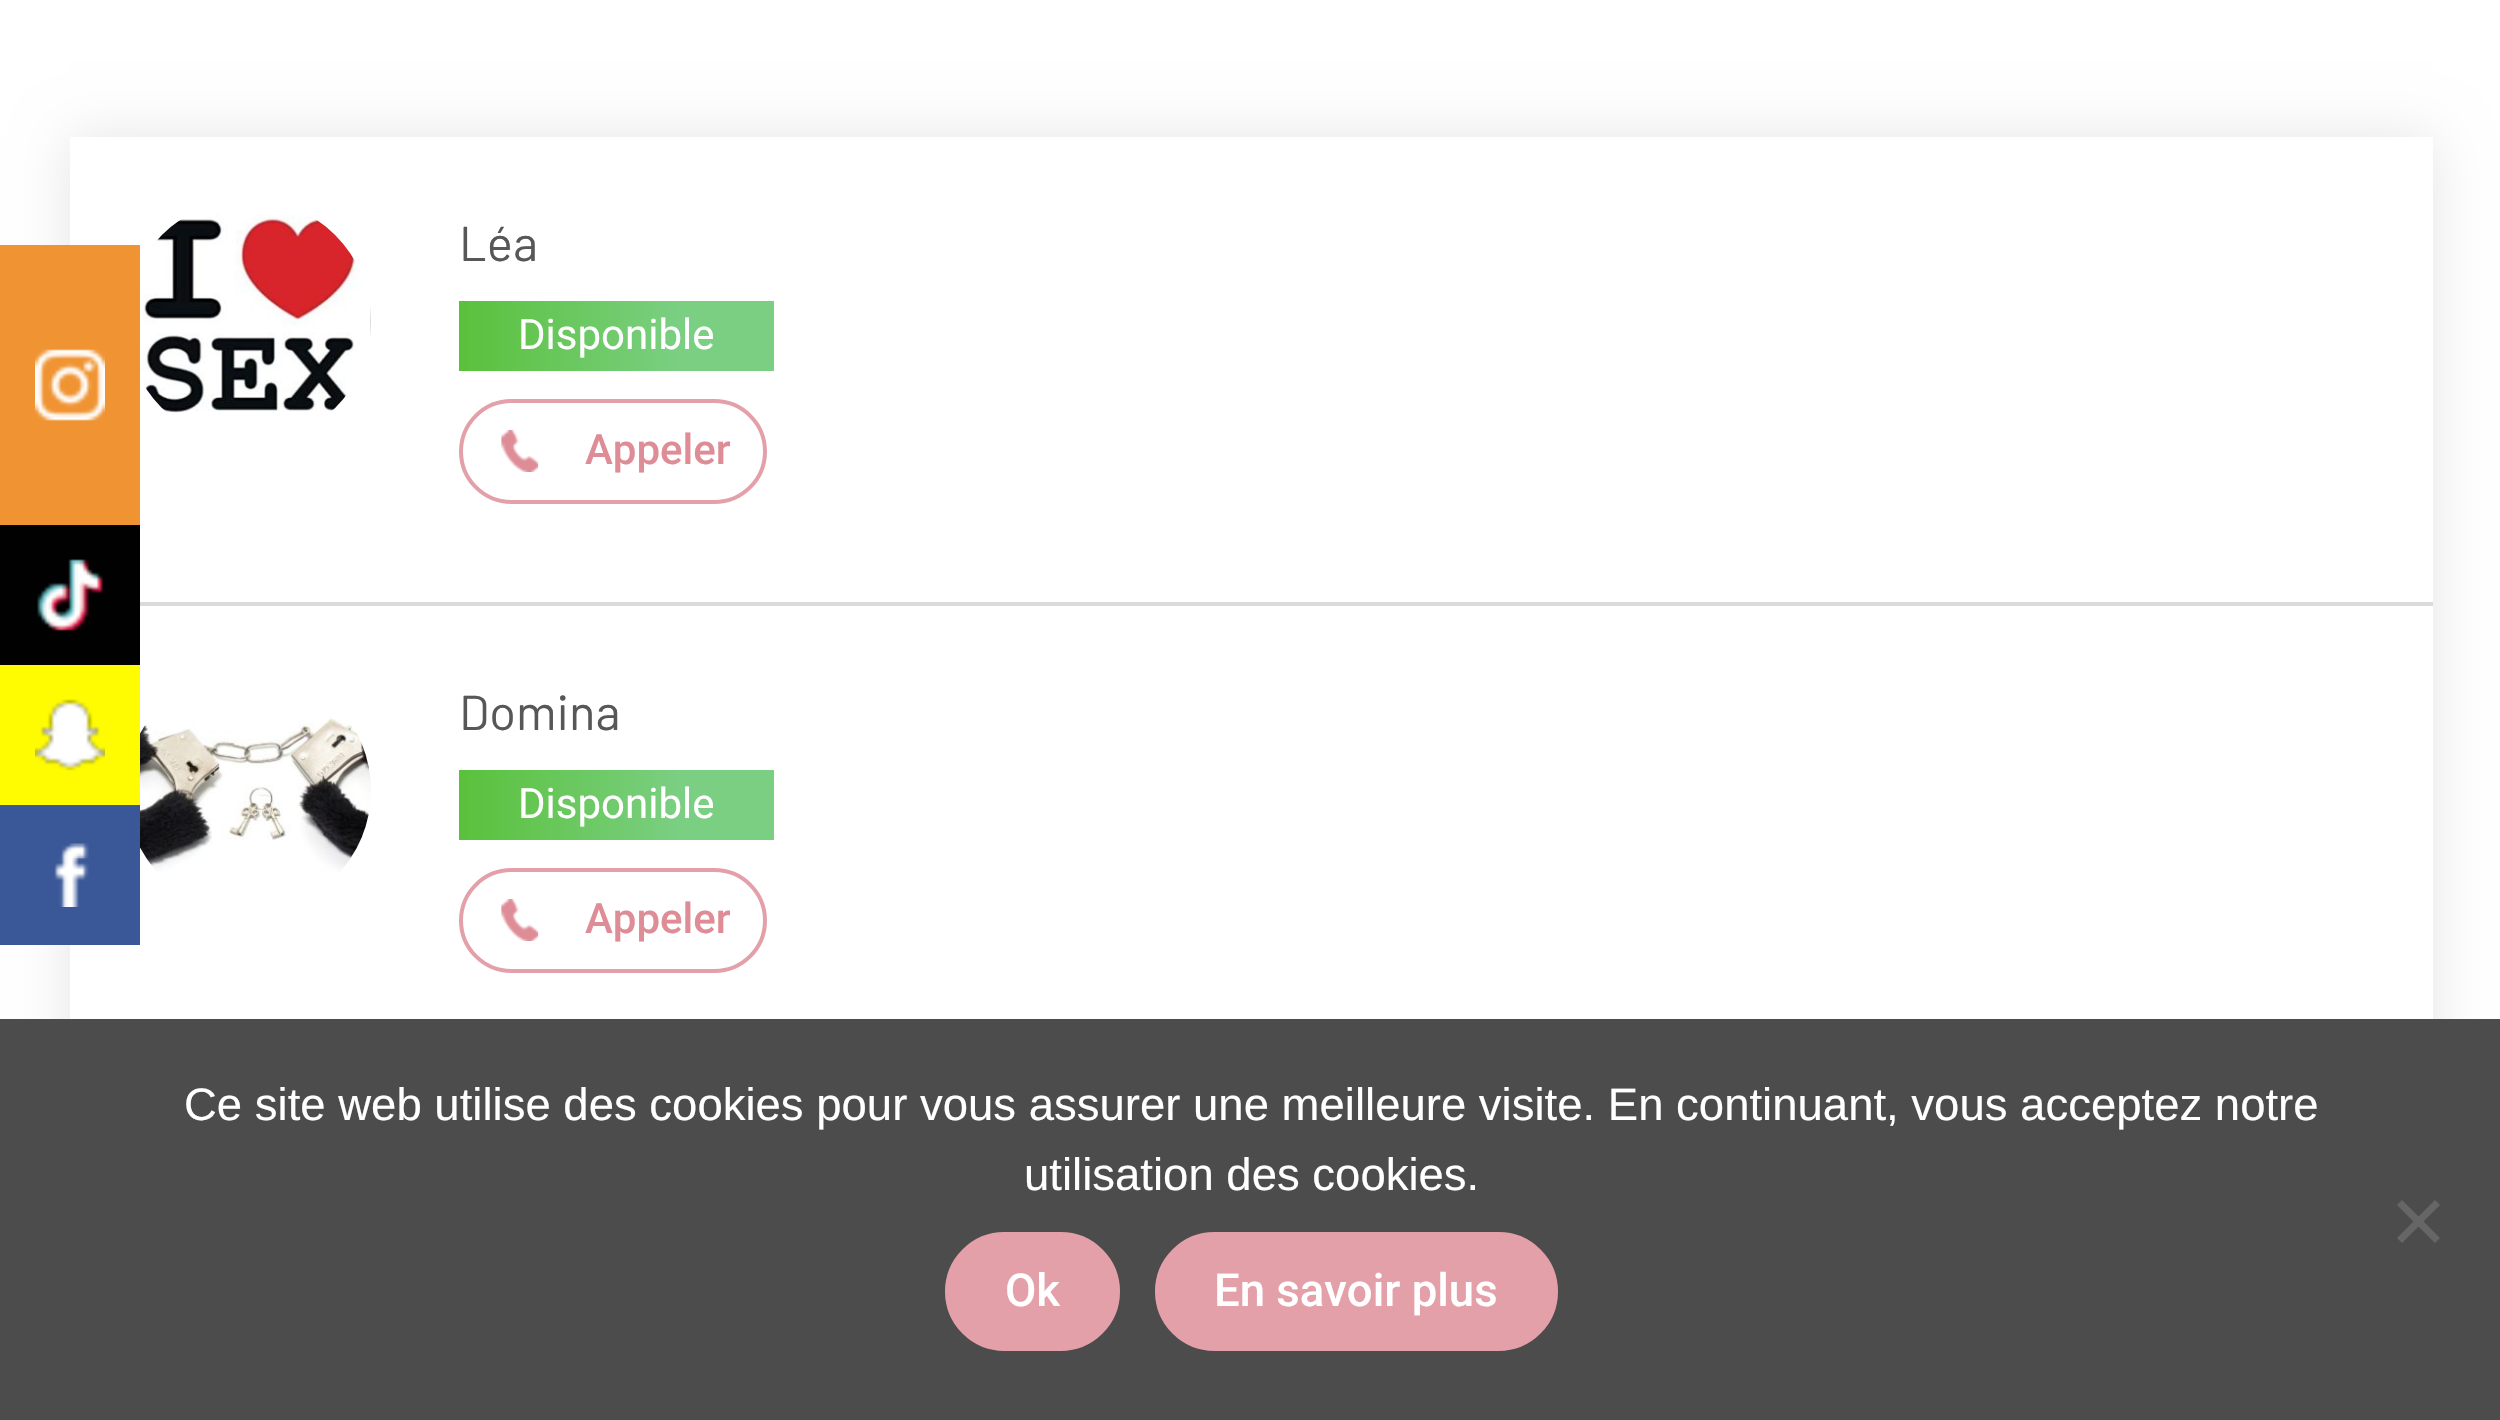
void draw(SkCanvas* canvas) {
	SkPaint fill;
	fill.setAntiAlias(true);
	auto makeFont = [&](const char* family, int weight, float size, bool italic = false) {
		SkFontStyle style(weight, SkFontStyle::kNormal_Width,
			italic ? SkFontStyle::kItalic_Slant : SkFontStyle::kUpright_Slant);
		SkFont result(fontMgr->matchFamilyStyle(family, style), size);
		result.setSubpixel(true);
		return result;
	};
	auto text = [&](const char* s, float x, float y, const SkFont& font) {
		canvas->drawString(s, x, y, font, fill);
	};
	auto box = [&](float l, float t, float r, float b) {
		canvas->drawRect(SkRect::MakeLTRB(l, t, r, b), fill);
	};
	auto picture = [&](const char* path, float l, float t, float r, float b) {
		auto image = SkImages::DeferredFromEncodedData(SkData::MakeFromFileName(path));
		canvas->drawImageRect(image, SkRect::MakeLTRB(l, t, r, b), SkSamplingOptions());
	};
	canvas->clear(0xFFFFFFFF);
	canvas->save();
	canvas->clipPath(SkPathBuilder(SkPathFillType::kEvenOdd).moveTo(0, 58).lineTo(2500, 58).lineTo(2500, 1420).lineTo(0, 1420).close().moveTo(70, 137).lineTo(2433, 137).lineTo(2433, 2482).lineTo(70, 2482).close().detach(), true);
	fill.setColor(0x1A000000);
	fill.setMaskFilter(SkMaskFilter::MakeBlur(kNormal_SkBlurStyle, 26));
	canvas->drawRect(SkRect::MakeLTRB(70, 137, 2433, 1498), fill);
	fill.setMaskFilter(nullptr);
	canvas->restore();
	fill.setColor(0xFFF09433);
	box(0, 245, 140, 525);
	picture("image0.png", 35, 349, 105, 421);
	fill.setColor(0xFF010101);
	box(0, 525, 140, 665);
	picture("image1.png", 37, 559, 103, 631);
	fill.setColor(0xFFFFFC01);
	box(0, 665, 140, 805);
	picture("image2.png", 35, 699, 105, 771);
	fill.setColor(0xFF3A5897);
	box(0, 805, 140, 945);
	picture("image3.png", 54, 843, 89, 907);
	fill.setColor(0xFFDADADA);
	box(140, 602, 2433, 606);
	picture("image4.png", 140, 214, 371, 413);
	{
		const SkColor colors[] = {0xFF5AC13B, 0xFF7ACF82};
		const float stops[] = {0, 0.7f};
		const SkPoint ends[] = {{459, 336}, {774, 336}};
		fill.setShader(SkGradientShader::MakeLinear(ends, colors, stops, 2, SkTileMode::kClamp));
		fill.setAlpha(255);
	}
	box(459, 301, 774, 371);
	fill.setStyle(SkPaint::kStroke_Style);
	fill.setStrokeWidth(4);
	fill.setShader(nullptr);
	fill.setColor(0xFFE4A0A9);
	canvas->drawRoundRect(SkRect::MakeLTRB(461, 401, 765, 502), 50.5f, 50.5f, fill);
	picture("image5.png", 501, 430, 539, 472);
	picture("image6.png", 140, 718, 371, 872);
	fill.setStyle(SkPaint::kFill_Style);
	{
		const SkColor colors[] = {0xFF5AC13B, 0xFF7ACF82};
		const float stops[] = {0, 0.7f};
		const SkPoint ends[] = {{459, 805}, {774, 805}};
		fill.setShader(SkGradientShader::MakeLinear(ends, colors, stops, 2, SkTileMode::kClamp));
		fill.setAlpha(255);
	}
	box(459, 770, 774, 840);
	fill.setStyle(SkPaint::kStroke_Style);
	fill.setShader(nullptr);
	fill.setColor(0xFFE4A0A9);
	canvas->drawRoundRect(SkRect::MakeLTRB(461, 870, 765, 971), 50.5f, 50.5f, fill);
	picture("image5.png", 501, 899, 539, 941);
	fill.setStyle(SkPaint::kFill_Style);
	fill.setColor(0xFF4C4C4C);
	box(0, 1019, 2500, 1420);
	fill.setColor(0xFF666666);
	canvas->drawPath(SkPathBuilder().moveTo(2435, 1200).lineTo(2440, 1205).lineTo(2402, 1243).lineTo(2397, 1238).close().detach(), fill);
	canvas->drawPath(SkPathBuilder().moveTo(2397, 1205).lineTo(2402, 1200).lineTo(2440, 1238).lineTo(2435, 1243).close().detach(), fill);
	fill.setColor(0xFFE4A0A9);
	canvas->drawRoundRect(SkRect::MakeLTRB(948.5f, 1235.5f, 1116.5f, 1347.5f), 56, 56, fill);
	fill.setStyle(SkPaint::kStroke_Style);
	fill.setStrokeWidth(7);
	canvas->drawRoundRect(SkRect::MakeLTRB(948.5f, 1235.5f, 1116.5f, 1347.5f), 56, 56, fill);
	fill.setStyle(SkPaint::kFill_Style);
	canvas->drawRoundRect(SkRect::MakeLTRB(1158.5f, 1235.5f, 1554.5f, 1347.5f), 56, 56, fill);
	fill.setStyle(SkPaint::kStroke_Style);
	canvas->drawRoundRect(SkRect::MakeLTRB(1158.5f, 1235.5f, 1554.5f, 1347.5f), 56, 56, fill);
	auto font1 = makeFont("Barlow", 400, 49);
	fill.setStyle(SkPaint::kFill_Style);
	fill.setColor(0xFF575757);
	text("Léa", 459, 261, font1);
	auto font2 = makeFont("Roboto", 400, 42);
	fill.setColor(0xFFFFFFFF);
	text("Disponible", 518, 349, font2);
	auto font3 = makeFont("Roboto", 500, 42);
	fill.setColor(0xFFDE8D97);
	text("Appeler", 585, 464, font3);
	fill.setColor(0xFF575757);
	text("Domina", 459, 730, font1);
	fill.setColor(0xFFFFFFFF);
	text("Disponible", 518, 818, font2);
	fill.setColor(0xFFDE8D97);
	text("Appeler", 585, 933, font3);
	auto font4 = makeFont("Liberation Sans", 400, 45.5f);
	fill.setColor(0xFFFFFFFF);
	text("Ce site web utilise des cookies pour vous assurer une meilleure visite. En continuant, vous acceptez notre", 184, 1120, font4);
	text("utilisation des cookies.", 1024, 1190, font4);
	auto font5 = makeFont("Roboto", 500, 45.5f);
	text("Ok", 1005, 1306, font5);
	text("En savoir plus", 1214, 1306, font5);
}
